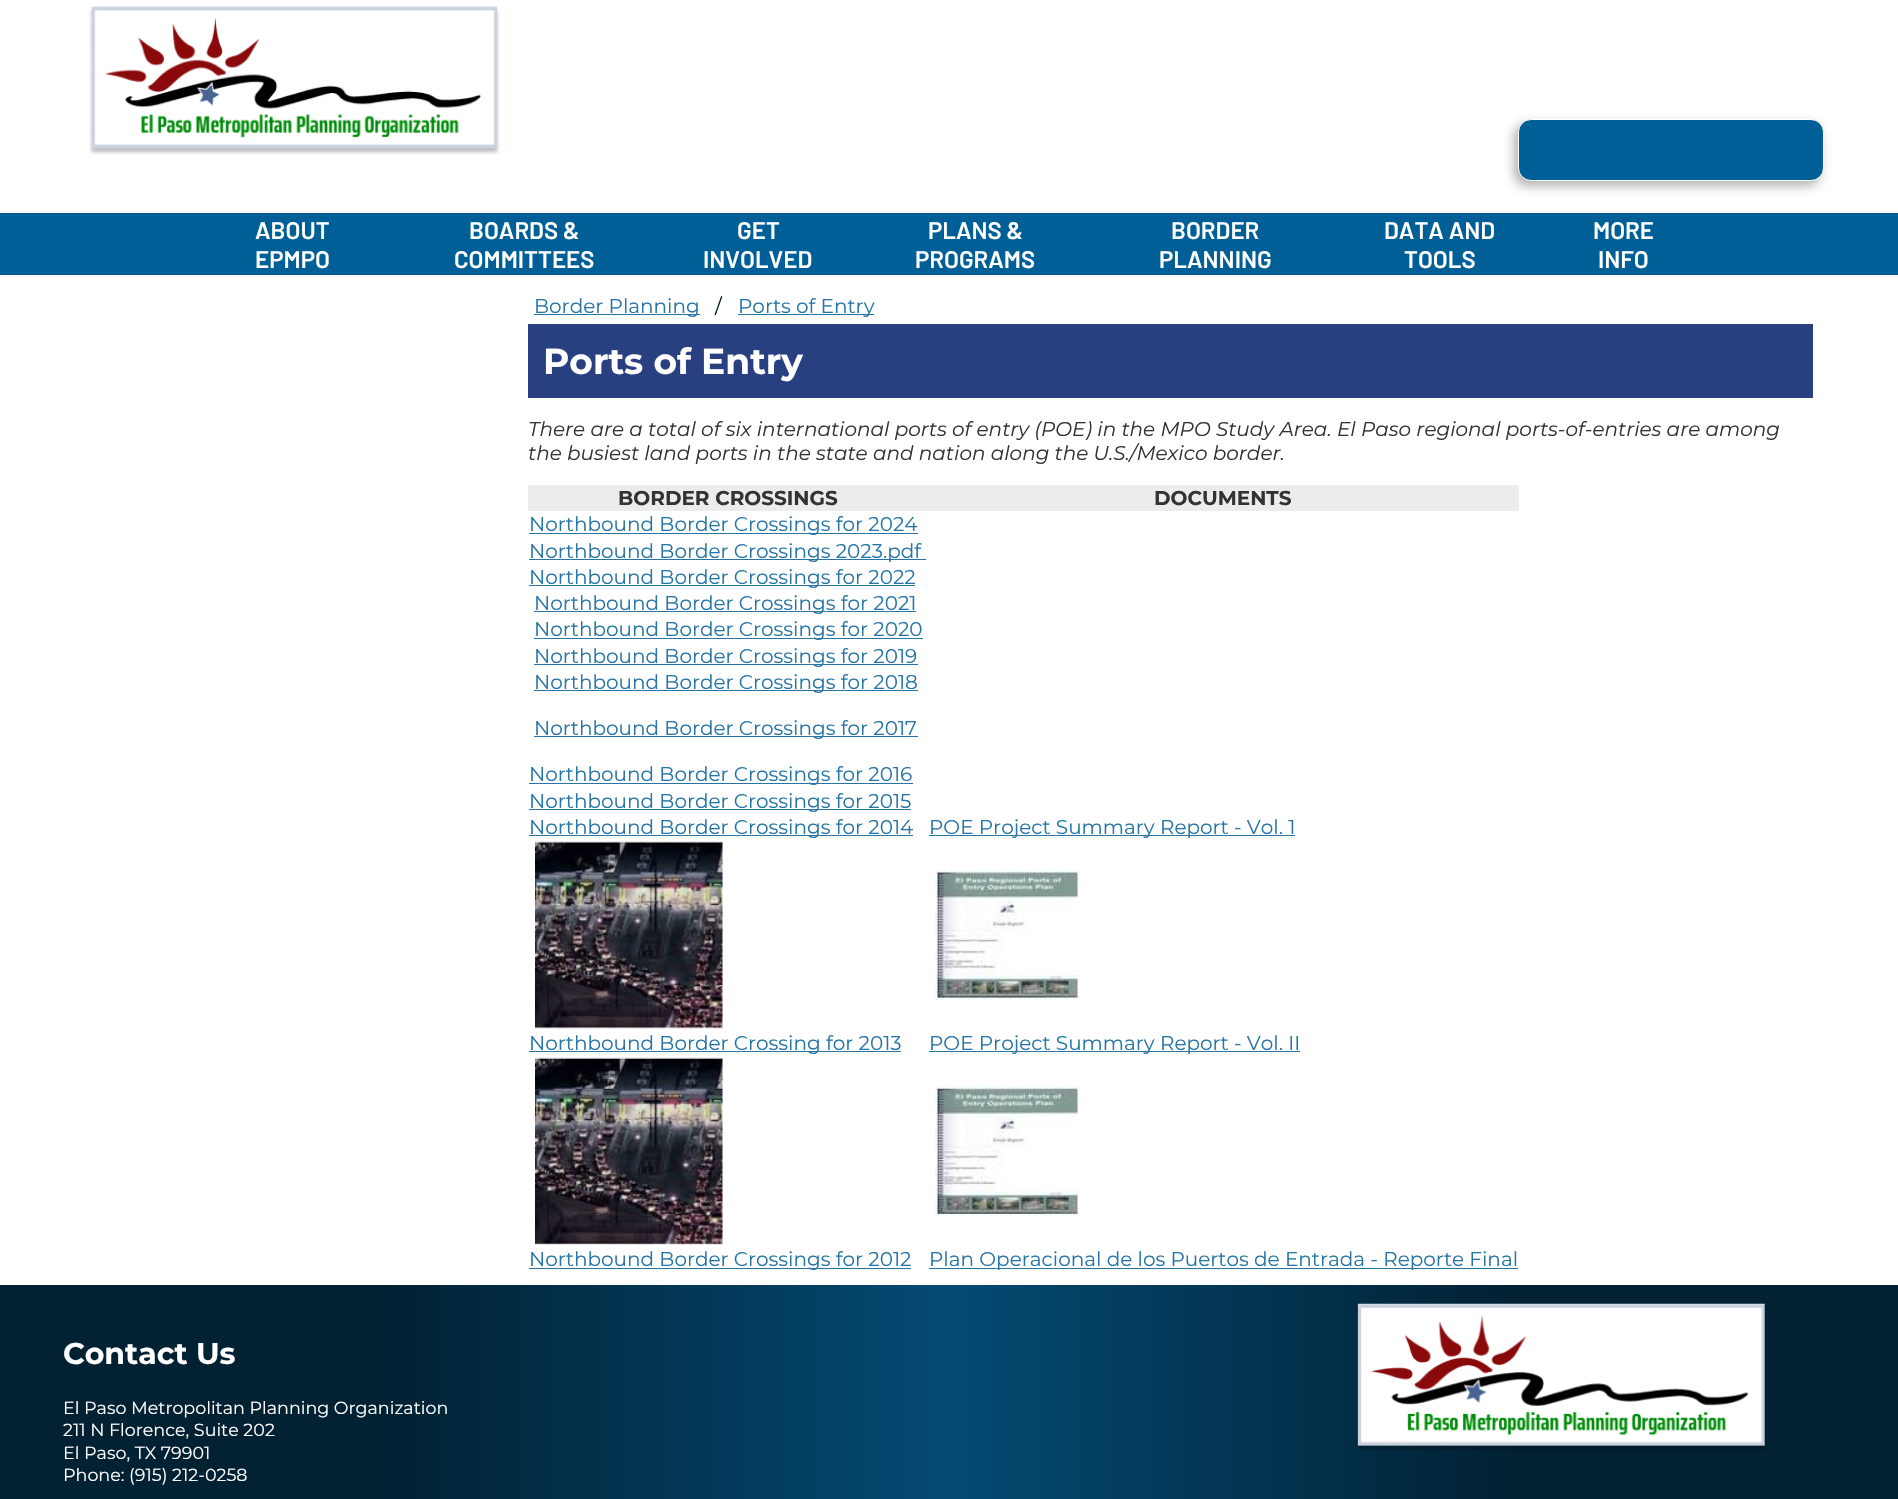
void draw(SkCanvas* canvas) {
	SkPaint fill;
	fill.setAntiAlias(true);
	auto makeFont = [&](const char* family, int weight, float size, bool italic = false) {
		SkFontStyle style(weight, SkFontStyle::kNormal_Width,
			italic ? SkFontStyle::kItalic_Slant : SkFontStyle::kUpright_Slant);
		SkFont result(fontMgr->matchFamilyStyle(family, style), size);
		result.setSubpixel(true);
		return result;
	};
	auto text = [&](const char* s, float x, float y, const SkFont& font) {
		canvas->drawString(s, x, y, font, fill);
	};
	auto box = [&](float l, float t, float r, float b) {
		canvas->drawRect(SkRect::MakeLTRB(l, t, r, b), fill);
	};
	auto picture = [&](const char* path, float l, float t, float r, float b) {
		auto image = SkImages::DeferredFromEncodedData(SkData::MakeFromFileName(path));
		canvas->drawImageRect(image, SkRect::MakeLTRB(l, t, r, b), SkSamplingOptions());
	};
	canvas->clear(0xFFFFFFFF);
	picture("image0.png", 89, 6, 500, 155);
	fill.setColor(0x4F000000);
	fill.setMaskFilter(SkMaskFilter::MakeBlur(kNormal_SkBlurStyle, 5.5f));
	canvas->drawRoundRect(SkRect::MakeLTRB(1514, 124, 1820, 186), 13, 13, fill);
	fill.setMaskFilter(nullptr);
	fill.setColor(0xFF005F96);
	canvas->drawRoundRect(SkRect::MakeLTRB(1518.5f, 119.5f, 1823.5f, 180.5f), 12.5f, 12.5f, fill);
	fill.setStyle(SkPaint::kStroke_Style);
	fill.setStrokeWidth(1);
	fill.setColor(0xFFFFFFFF);
	canvas->drawRoundRect(SkRect::MakeLTRB(1518.5f, 119.5f, 1823.5f, 180.5f), 12.5f, 12.5f, fill);
	fill.setStyle(SkPaint::kFill_Style);
	fill.setColor(0xFF005F96);
	box(0, 213, 1898, 275);
	fill.setColor(0xFF2675A6);
	box(534, 314, 700, 315);
	box(738, 314, 874, 315);
	fill.setColor(0xFF294080);
	box(528, 324, 1813, 398);
	fill.setColor(0xFFECECEC);
	box(528, 485, 1519, 511);
	fill.setColor(0xFF2675A6);
	box(529, 533, 918, 534);
	box(529, 559, 926, 560);
	box(529, 585, 915, 586);
	box(534, 611, 916, 612);
	box(534, 638, 923, 639);
	box(534, 664, 918, 665);
	box(534, 690, 918, 691);
	box(534, 736, 918, 737);
	box(529, 783, 913, 784);
	box(529, 809, 911, 810);
	box(529, 835, 913, 836);
	box(929, 835, 1295, 836);
	picture("image1.png", 535, 841, 723, 1029);
	picture("image2.png", 935, 870, 1080, 1000);
	box(529, 1051, 901, 1052);
	box(929, 1051, 1300, 1052);
	picture("image3.png", 535, 1057, 723, 1245);
	picture("image4.png", 935, 1086, 1080, 1216);
	box(529, 1268, 911, 1269);
	box(929, 1268, 1518, 1269);
	{
		const SkColor colors[] = {0xFF022133, 0xFF034A73, 0xFF022133};
		const float stops[] = {0.2f, 0.5f, 0.8f};
		const SkPoint ends[] = {{0, 1426}, {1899, 1426}};
		fill.setShader(SkGradientShader::MakeLinear(ends, colors, stops, 3, SkTileMode::kClamp));
		fill.setAlpha(255);
	}
	box(0, 1285, 1898, 1499);
	picture("image5.png", 1356, 1303, 1766, 1451);
	auto font1 = makeFont("Barlow", 600, 24);
	fill.setShader(nullptr);
	fill.setColor(0xFFFFFFFF);
	text("ABOUT", 255, 239, font1);
	text("EPMPO", 255, 268, font1);
	text("BOARDS &", 469, 239, font1);
	text("COMMITTEES", 454, 268, font1);
	text("GET", 737, 239, font1);
	text("INVOLVED", 703, 268, font1);
	text("PLANS &", 928, 239, font1);
	text("PROGRAMS", 915, 268, font1);
	text("BORDER", 1171, 239, font1);
	text("PLANNING", 1159, 268, font1);
	text("DATA AND", 1384, 239, font1);
	text("TOOLS", 1404, 268, font1);
	text("MORE", 1593, 239, font1);
	text("INFO", 1598, 268, font1);
	auto font2 = makeFont("Montserrat", 400, 20);
	fill.setColor(0xFF2675A6);
	text("Border Planning", 534, 313, font2);
	fill.setColor(0xFF002800);
	text("/", 715, 313, font2);
	fill.setColor(0xFF2675A6);
	text("Ports of Entry", 738, 313, font2);
	auto font3 = makeFont("Montserrat", 700, 36);
	fill.setColor(0xFFFFFFFF);
	text("Ports of Entry", 543, 374, font3);
	auto font4 = makeFont("Montserrat", 400, 20, true);
	fill.setColor(0xFF333333);
	text("There are a total of six international ports of entry (POE) in the MPO Study Area. El Paso regional ports-of-entries are among", 528, 436, font4);
	text("the busiest land ports in the state and nation along the U.S./Mexico border.", 528, 460, font4);
	auto font5 = makeFont("Montserrat", 700, 20);
	text("BORDER CROSSINGS", 618, 505, font5);
	text("DOCUMENTS", 1154, 505, font5);
	fill.setColor(0xFF2675A6);
	text("Northbound Border Crossings for 2024", 529, 531, font2);
	text("Northbound Border Crossings 2023.pdf", 529, 558, font2);
	text("Northbound Border Crossings for 2022", 529, 584, font2);
	text("Northbound Border Crossings for 2021", 534, 610, font2);
	text("Northbound Border Crossings for 2020", 534, 636, font2);
	text("Northbound Border Crossings for 2019", 534, 663, font2);
	text("Northbound Border Crossings for 2018", 534, 689, font2);
	text("Northbound Border Crossings for 2017", 534, 735, font2);
	text("Northbound Border Crossings for 2016", 529, 781, font2);
	text("Northbound Border Crossings for 2015", 529, 808, font2);
	text("Northbound Border Crossings for 2014", 529, 834, font2);
	text("POE Project Summary Report - Vol. 1", 929, 834, font2);
	text("Northbound Border Crossing for 2013", 529, 1050, font2);
	text("POE Project Summary Report - Vol. II", 929, 1050, font2);
	text("Northbound Border Crossings for 2012", 529, 1266, font2);
	text("Plan Operacional de los Puertos de Entrada - Reporte Final", 929, 1266, font2);
	auto font6 = makeFont("Montserrat", 700, 30);
	fill.setColor(0xFFFFFFFF);
	text("Contact Us", 63, 1364, font6);
	auto font7 = makeFont("Montserrat", 400, 17.5f);
	text("El Paso Metropolitan Planning Organization", 63, 1414, font7);
	text("211 N Florence, Suite 202", 63, 1436, font7);
	text("El Paso, TX 79901", 63, 1459, font7);
	text("Phone: (915) 212-0258", 63, 1481, font7);
}
